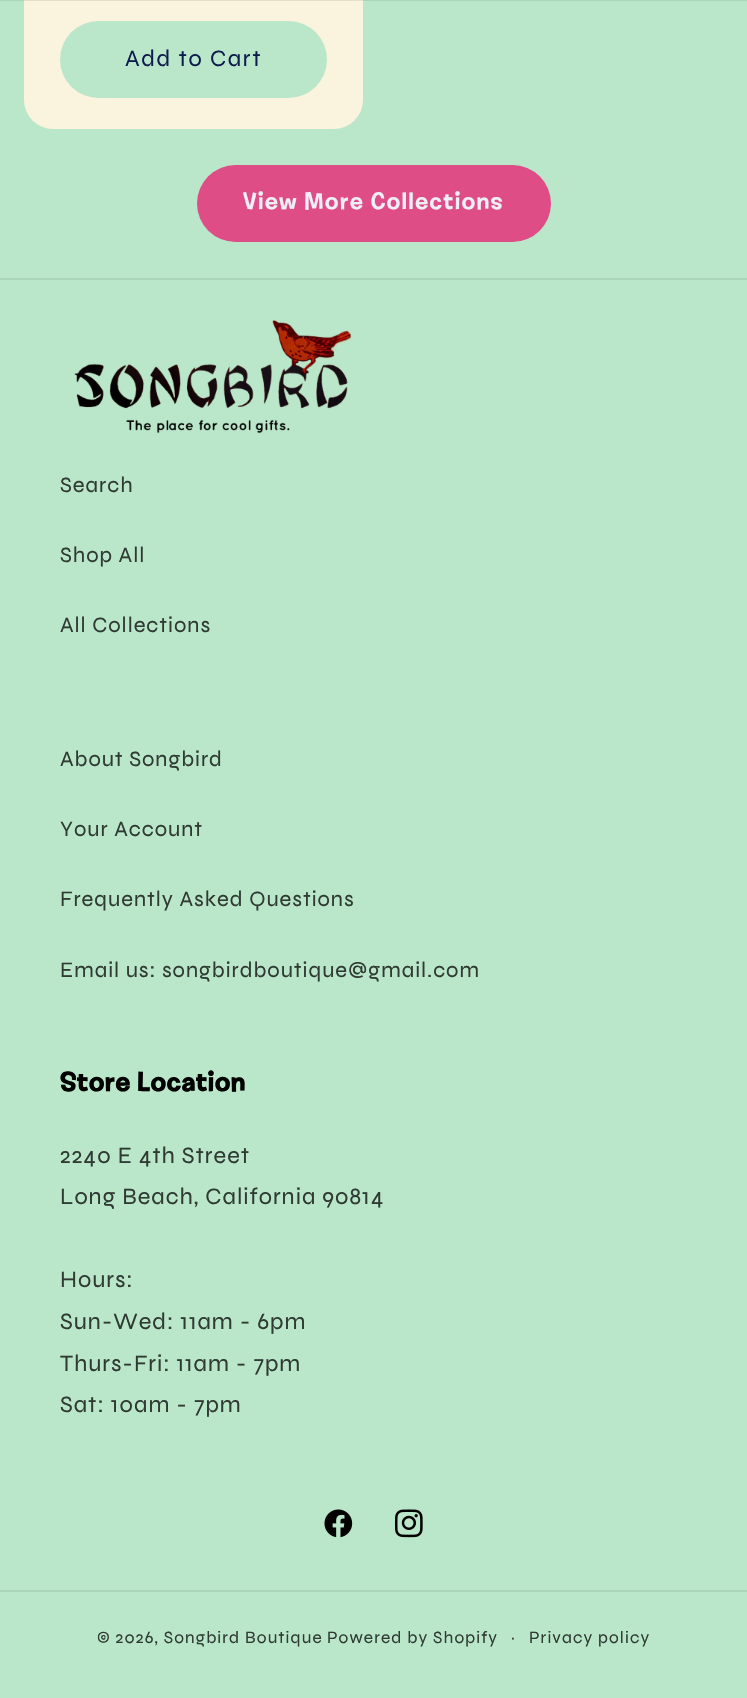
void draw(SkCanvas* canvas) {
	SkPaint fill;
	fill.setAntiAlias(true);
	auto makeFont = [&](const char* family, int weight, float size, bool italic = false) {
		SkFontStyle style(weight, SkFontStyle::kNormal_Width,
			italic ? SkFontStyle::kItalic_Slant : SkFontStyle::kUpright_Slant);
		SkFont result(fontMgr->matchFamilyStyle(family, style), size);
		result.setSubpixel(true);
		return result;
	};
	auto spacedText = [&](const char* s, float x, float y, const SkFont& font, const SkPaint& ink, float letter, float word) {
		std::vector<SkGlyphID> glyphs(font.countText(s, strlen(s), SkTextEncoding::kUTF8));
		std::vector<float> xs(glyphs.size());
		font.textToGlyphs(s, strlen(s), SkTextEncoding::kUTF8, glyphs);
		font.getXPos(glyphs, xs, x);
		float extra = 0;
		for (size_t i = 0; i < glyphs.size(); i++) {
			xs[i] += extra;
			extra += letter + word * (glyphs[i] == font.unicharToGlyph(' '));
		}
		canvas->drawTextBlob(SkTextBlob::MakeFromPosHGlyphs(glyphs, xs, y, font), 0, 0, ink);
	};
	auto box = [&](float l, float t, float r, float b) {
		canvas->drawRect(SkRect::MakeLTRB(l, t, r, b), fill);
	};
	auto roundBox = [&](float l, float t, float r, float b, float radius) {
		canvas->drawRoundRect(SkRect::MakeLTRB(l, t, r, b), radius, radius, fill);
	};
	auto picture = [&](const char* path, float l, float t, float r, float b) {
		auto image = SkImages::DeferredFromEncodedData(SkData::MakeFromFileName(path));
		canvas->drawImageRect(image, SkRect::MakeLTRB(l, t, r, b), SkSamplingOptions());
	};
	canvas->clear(0xFFBAE7CA);
	fill.setColor(0xFFABD5BA);
	box(0, 0, 747, 1);
	fill.setColor(0xFFFAF3DD);
	roundBox(24, -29, 363, 129, 29);
	fill.setColor(0xFFE6E0CB);
	box(24, 0, 363, 1);
	fill.setColor(0xFFBAE7CA);
	roundBox(60, 21, 327, 98, 38.5f);
	fill.setColor(0xFFDE4D86);
	roundBox(197, 165, 551, 242, 38.5f);
	fill.setColor(0xFFABD5BA);
	box(0, 278, 747, 280);
	picture("image0.png", 74, 320, 352, 434);
	picture("image1.png", 324, 1509, 353, 1538);
	picture("image2.png", 394, 1509, 423, 1538);
	box(0, 1590, 747, 1592);
	auto font1 = makeFont("Syne", 400, 23.6f);
	fill.setColor(0xFF0E1B4D);
	spacedText("Add to Cart", 125, 66, font1, fill, 1.6f, 0);
	auto font2 = makeFont("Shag", 400, 23.6f);
	fill.setColor(0xFFEFF0F5);
	spacedText("View More Collections", 243, 209, font2, fill, 1.6f, 0);
	auto font3 = makeFont("Syne", 400, 22);
	fill.setColor(0xFF2F3A33);
	spacedText("Search", 60, 492, font3, fill, 0.95f, 0);
	spacedText("Shop All", 60, 562, font3, fill, 0.95f, 0);
	spacedText("All Collections", 60, 632, font3, fill, 0.95f, 0);
	spacedText("About Songbird", 60, 766, font3, fill, 0.95f, 0);
	spacedText("Your Account", 60, 836, font3, fill, 0.95f, 0);
	spacedText("Frequently Asked Questions", 60, 906, font3, fill, 0.95f, 0);
	spacedText("Email us: songbirdboutique@gmail.com", 60, 977, font3, fill, 0.95f, 0);
	auto font4 = makeFont("Shag", 700, 26.5f);
	fill.setColor(0xFF000000);
	spacedText("Store Location", 60, 1091, font4, fill, 1, 0);
	fill.setColor(0xFF2F3A33);
	spacedText("2240 E 4th Street", 60, 1163, font1, fill, 0.95f, 0);
	spacedText("Long Beach, California 90814", 60, 1204, font1, fill, 0.95f, 0);
	spacedText("Hours:", 60, 1287, font1, fill, 0.95f, 0);
	spacedText("Sun-Wed: 11am - 6pm", 60, 1329, font1, fill, 0.95f, 0);
	spacedText("Thurs-Fri: 11am - 7pm", 60, 1371, font1, fill, 0.95f, 0);
	spacedText("Sat: 10am - 7pm", 60, 1412, font1, fill, 0.95f, 0);
	auto font5 = makeFont("Syne", 400, 17.3f);
	spacedText("© 2026, Songbird Boutique", 97, 1643, font5, fill, 1.1f, 0);
	spacedText("Powered by Shopify", 327, 1643, font5, fill, 1.1f, 0);
	auto font6 = makeFont("Syne", 400, 16);
	spacedText("·", 511, 1643, font6, fill, 1.1f, 0);
	spacedText("Privacy policy", 529, 1643, font5, fill, 1.1f, 0);
}
